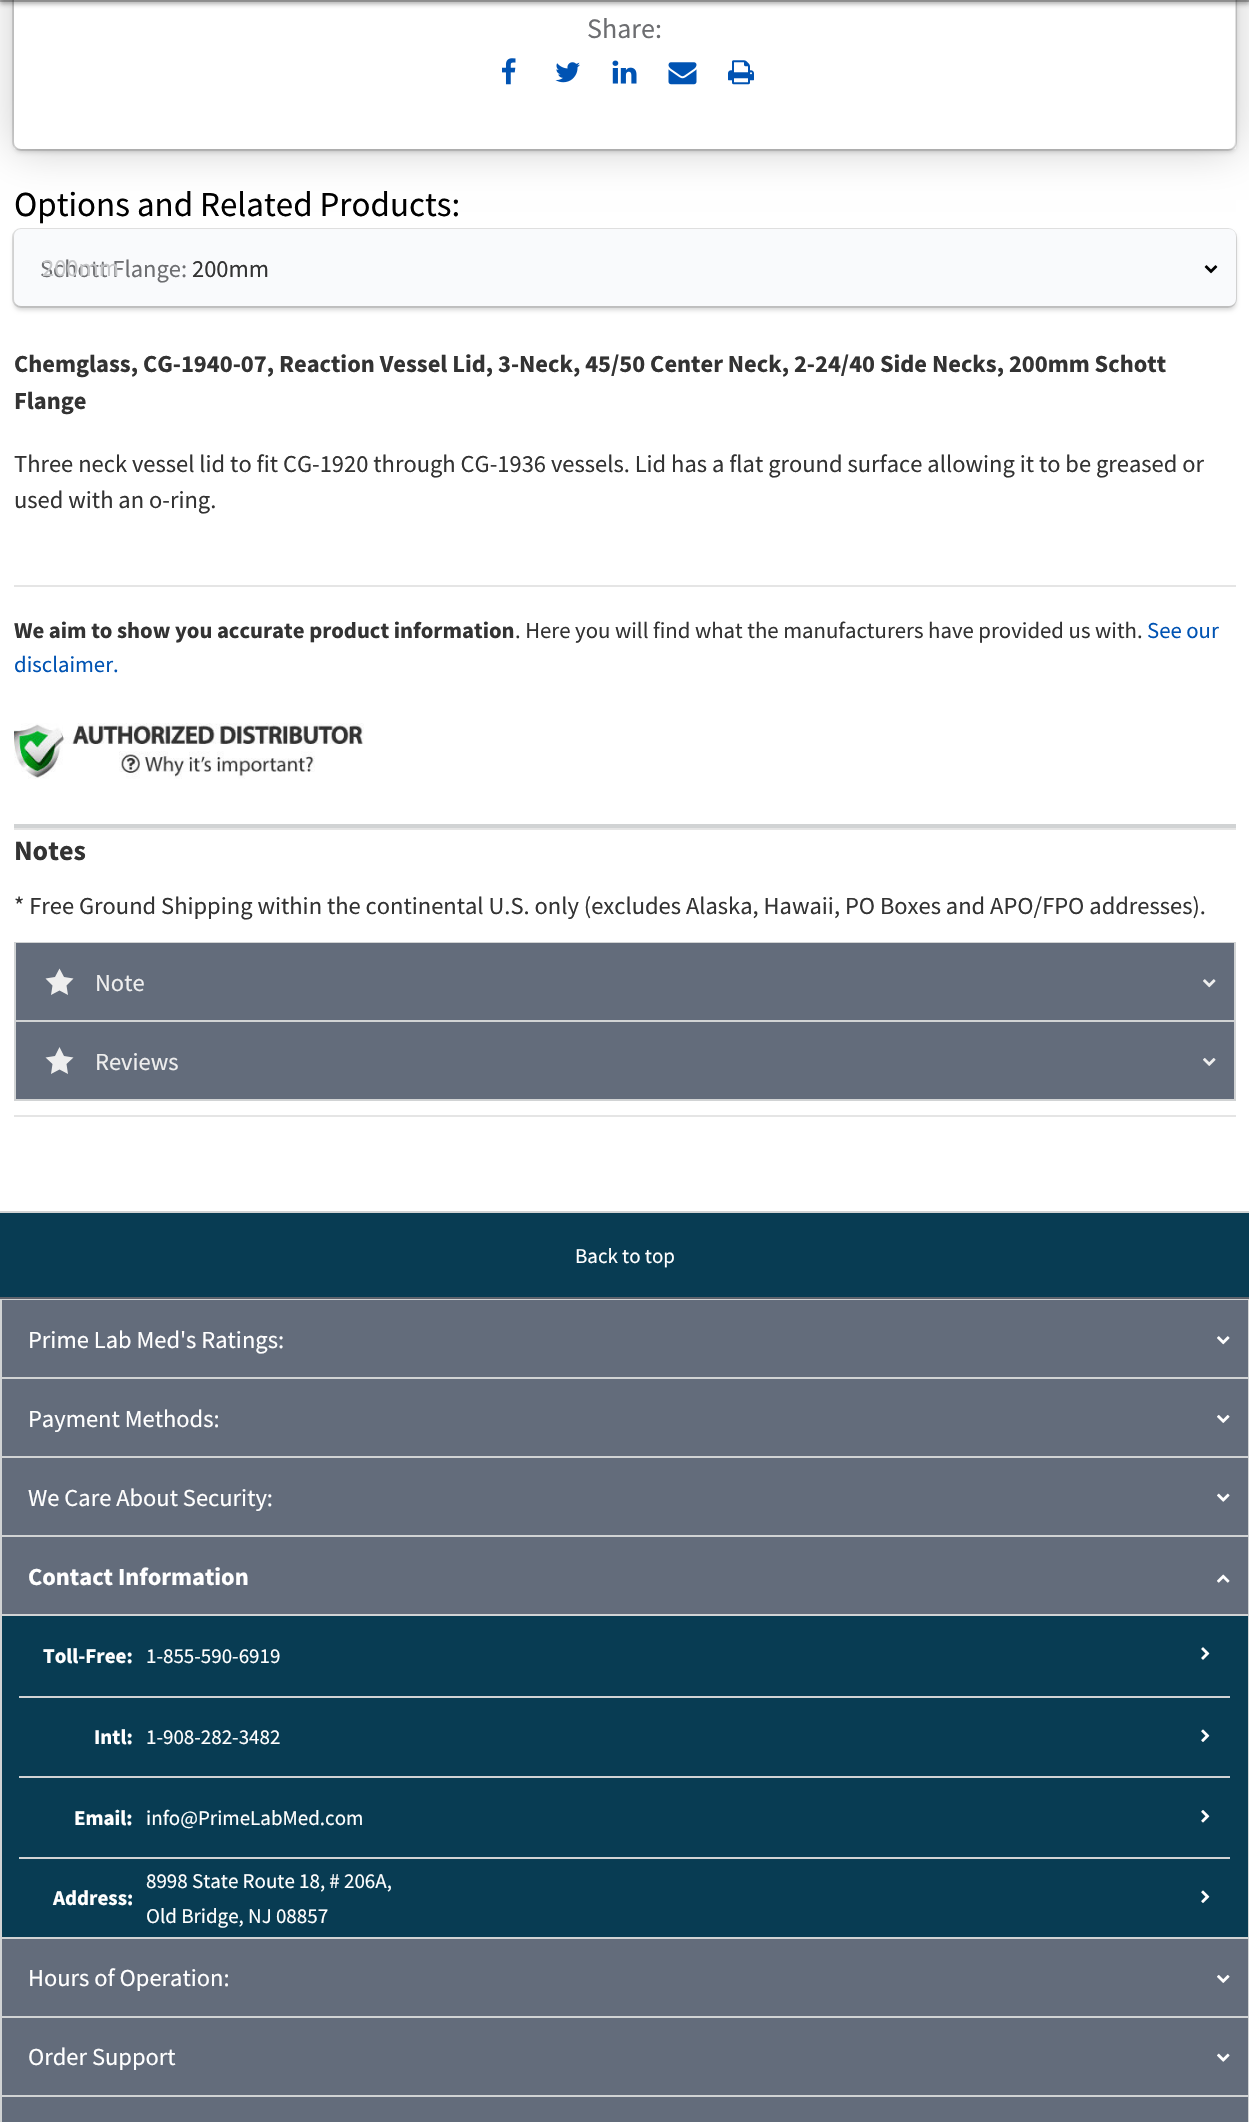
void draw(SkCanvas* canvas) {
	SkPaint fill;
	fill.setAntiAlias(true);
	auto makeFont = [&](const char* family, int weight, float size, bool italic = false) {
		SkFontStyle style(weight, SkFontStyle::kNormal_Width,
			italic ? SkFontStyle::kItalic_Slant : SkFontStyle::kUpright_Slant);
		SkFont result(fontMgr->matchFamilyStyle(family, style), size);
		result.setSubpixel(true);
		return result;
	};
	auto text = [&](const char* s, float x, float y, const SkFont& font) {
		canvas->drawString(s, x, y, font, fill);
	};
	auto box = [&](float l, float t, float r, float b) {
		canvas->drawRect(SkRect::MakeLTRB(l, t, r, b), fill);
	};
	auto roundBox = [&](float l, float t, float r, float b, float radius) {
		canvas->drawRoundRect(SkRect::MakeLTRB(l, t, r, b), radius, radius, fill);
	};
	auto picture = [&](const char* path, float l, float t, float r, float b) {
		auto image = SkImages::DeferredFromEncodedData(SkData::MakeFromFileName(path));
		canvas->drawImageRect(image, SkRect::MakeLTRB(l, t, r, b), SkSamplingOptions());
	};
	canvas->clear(0xFFFFFFFF);
	canvas->save();
	canvas->clipPath(SkPathBuilder(SkPathFillType::kEvenOdd).moveTo(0, 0).lineTo(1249, 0).lineTo(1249, 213).lineTo(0, 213).close().moveTo(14, -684).lineTo(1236, -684).lineTo(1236, 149).lineTo(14, 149).close().detach(), true);
	fill.setColor(0x33000000);
	fill.setMaskFilter(SkMaskFilter::MakeBlur(kNormal_SkBlurStyle, 21));
	canvas->drawRect(SkRect::MakeLTRB(14, -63, 1236, 149), fill);
	fill.setMaskFilter(nullptr);
	canvas->restore();
	fill.setStyle(SkPaint::kStroke_Style);
	fill.setStrokeWidth(2);
	fill.setColor(0x1F000000);
	canvas->drawRoundRect(SkRect::MakeLTRB(13, -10, 1236, 150), 8, 8, fill);
	canvas->save();
	canvas->clipPath(SkPathBuilder(SkPathFillType::kEvenOdd).moveTo(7, 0).lineTo(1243, 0).lineTo(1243, 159).lineTo(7, 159).close().moveTo(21, -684).lineTo(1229, -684).cubicTo(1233, -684, 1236, -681, 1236, -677).lineTo(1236, 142).cubicTo(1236, 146, 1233, 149, 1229, 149).lineTo(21, 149).cubicTo(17, 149, 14, 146, 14, 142).lineTo(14, -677).cubicTo(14, -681, 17, -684, 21, -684).close().detach(), true);
	fill.setStyle(SkPaint::kFill_Style);
	fill.setColor(0x29000000);
	fill.setMaskFilter(SkMaskFilter::MakeBlur(kNormal_SkBlurStyle, 2));
	canvas->drawRoundRect(SkRect::MakeLTRB(14, -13, 1236, 152), 7, 7, fill);
	fill.setMaskFilter(nullptr);
	canvas->restore();
	fill.setStyle(SkPaint::kStroke_Style);
	fill.setColor(0x1F000000);
	canvas->drawRect(SkRect::MakeLTRB(-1, -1, 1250, 1), fill);
	fill.setStyle(SkPaint::kFill_Style);
	fill.setColor(0x29000000);
	fill.setMaskFilter(SkMaskFilter::MakeBlur(kNormal_SkBlurStyle, 2));
	canvas->drawRect(SkRect::MakeLTRB(0, -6, 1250, 4), fill);
	fill.setMaskFilter(nullptr);
	fill.setStyle(SkPaint::kStroke_Style);
	fill.setColor(0x1F000000);
	canvas->drawRect(SkRect::MakeLTRB(-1, -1, 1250, 1), fill);
	fill.setStyle(SkPaint::kFill_Style);
	fill.setColor(0x29000000);
	fill.setMaskFilter(SkMaskFilter::MakeBlur(kNormal_SkBlurStyle, 2));
	canvas->drawRect(SkRect::MakeLTRB(0, -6, 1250, 4), fill);
	fill.setMaskFilter(nullptr);
	picture("image0.png", 502, 58, 516, 85);
	picture("image1.png", 555, 62, 580, 83);
	picture("image2.png", 612, 60, 637, 84);
	picture("image3.png", 668, 62, 697, 85);
	picture("image4.png", 728, 60, 754, 85);
	fill.setStyle(SkPaint::kStroke_Style);
	fill.setColor(0xFFE0E0E0);
	canvas->drawRoundRect(SkRect::MakeLTRB(13, 229, 1236, 307), 8, 8, fill);
	fill.setStyle(SkPaint::kFill_Style);
	fill.setColor(0x29000000);
	fill.setMaskFilter(SkMaskFilter::MakeBlur(kNormal_SkBlurStyle, 2));
	canvas->drawRoundRect(SkRect::MakeLTRB(14, 233, 1236, 310), 7, 7, fill);
	fill.setMaskFilter(nullptr);
	fill.setColor(0xFFF9FAFC);
	roundBox(14, 229, 1236, 306, 7);
	picture("image5.png", 1204, 265, 1218, 274);
	fill.setColor(0xFFE5E5E5);
	box(14, 585, 1236, 587);
	picture("image6.png", 14, 723, 364, 779);
	box(14, 828, 1236, 830);
	fill.setColor(0xFFD1D3D4);
	box(14, 824, 1236, 828);
	fill.setColor(0xFFE5E5E5);
	box(14, 1115, 1236, 1117);
	fill.setStyle(SkPaint::kStroke_Style);
	fill.setColor(0xFFD1D3D4);
	canvas->drawRect(SkRect::MakeLTRB(15, 943, 1235, 1100), fill);
	fill.setStyle(SkPaint::kFill_Style);
	fill.setColor(0xFF636C7B);
	box(16, 943, 1234, 1020);
	fill.setColor(0xFFEEEEEE);
	canvas->drawPath(SkPathBuilder().moveTo(68, 995).lineTo(59.5f, 990.5f).lineTo(51, 995).lineTo(52.5f, 985.5f).lineTo(45.5f, 978.5f).lineTo(55, 977).lineTo(59.5f, 968.5f).lineTo(64, 977).lineTo(73.5f, 978.5f).lineTo(66.5f, 985.5f).close().detach(), fill);
	picture("image7.png", 1203, 979, 1216, 988);
	fill.setColor(0xFF636C7B);
	box(16, 1022, 1234, 1099);
	fill.setColor(0xFFD1D3D4);
	box(16, 1020, 1234, 1022);
	fill.setColor(0xFFEEEEEE);
	canvas->drawPath(SkPathBuilder().moveTo(68, 1074).lineTo(59.5f, 1069.5f).lineTo(51, 1074).lineTo(52.5f, 1064).lineTo(45.5f, 1057.5f).lineTo(55, 1056).lineTo(59.5f, 1047).lineTo(64, 1056).lineTo(73.5f, 1057.5f).lineTo(66.5f, 1064).close().detach(), fill);
	picture("image8.png", 1203, 1058, 1216, 1066);
	fill.setColor(0xFF083C53);
	box(0, 1213, 1249, 1937);
	fill.setColor(0xFFD1D3D4);
	box(0, 1211, 1249, 1213);
	fill.setColor(0xFF5F636C);
	box(0, 1297, 1249, 1299);
	fill.setStyle(SkPaint::kStroke_Style);
	fill.setColor(0xFFD1D3D4);
	canvas->drawRect(SkRect::MakeLTRB(1, 1300, 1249, 1536), fill);
	fill.setStyle(SkPaint::kFill_Style);
	fill.setColor(0xFF636C7B);
	box(2, 1300, 1248, 1377);
	picture("image9.png", 1217, 1336, 1230, 1345);
	box(2, 1379, 1248, 1456);
	fill.setColor(0xFFD1D3D4);
	box(2, 1377, 1248, 1379);
	picture("image10.png", 1217, 1415, 1230, 1423);
	fill.setColor(0xFF636C7B);
	box(2, 1458, 1248, 1535);
	fill.setColor(0xFFD1D3D4);
	box(2, 1456, 1248, 1458);
	picture("image11.png", 1217, 1493, 1230, 1502);
	fill.setStyle(SkPaint::kStroke_Style);
	canvas->drawRect(SkRect::MakeLTRB(1, 1536, 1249, 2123), fill);
	fill.setStyle(SkPaint::kFill_Style);
	fill.setColor(0xFF636C7B);
	box(2, 1537, 1248, 1614);
	picture("image12.png", 1217, 1574, 1230, 1583);
	fill.setColor(0xFFD1D3D4);
	box(2, 1614, 1248, 1616);
	box(19, 1696, 1230, 1698);
	picture("image13.png", 1201, 1647, 1210, 1660);
	box(19, 1776, 1230, 1778);
	picture("image14.png", 1201, 1729, 1210, 1742);
	box(19, 1857, 1230, 1859);
	picture("image15.png", 1201, 1810, 1210, 1823);
	picture("image14.png", 1201, 1890, 1210, 1903);
	fill.setColor(0xFF636C7B);
	box(2, 1939, 1248, 2016);
	fill.setColor(0xFFD1D3D4);
	box(2, 1937, 1248, 1939);
	picture("image10.png", 1217, 1975, 1230, 1983);
	fill.setColor(0xFF636C7B);
	box(2, 2018, 1248, 2095);
	fill.setColor(0xFFD1D3D4);
	box(2, 2016, 1248, 2018);
	picture("image11.png", 1217, 2053, 1230, 2062);
	fill.setColor(0xFF636C7B);
	box(2, 2097, 1248, 2122);
	fill.setColor(0xFFD1D3D4);
	box(2, 2095, 1248, 2097);
	auto font1 = makeFont("Source Sans Pro", 400, 28);
	fill.setColor(0xFF6D6E71);
	text("Share:", 587, 38, font1);
	auto font2 = makeFont("Source Sans Pro", 400, 35);
	fill.setColor(0xFF000000);
	text("Options and Related Products:", 14, 216, font2);
	auto font3 = makeFont("Source Sans Pro", 400, 24.5f);
	fill.setColor(0xFF6D6E71);
	text("Schott Flange:", 40, 277, font3);
	fill.setColor(0xFF333333);
	text("200mm", 192, 277, font3);
	fill.setColor(0xFFC6C7C9);
	text("200mm", 42, 276, font3);
	auto font4 = makeFont("Source Sans Pro", 700, 24.5f);
	fill.setColor(0xFF333333);
	text("Chemglass, CG-1940-07, Reaction Vessel Lid, 3-Neck, 45/50 Center Neck, 2-24/40 Side Necks, 200mm Schott", 14, 372, font4);
	text("Flange", 14, 409, font4);
	text("Three neck vessel lid to fit CG-1920 through CG-1936 vessels. Lid has a flat ground surface allowing it to be greased or", 14, 472, font3);
	text("used with an o-ring.", 14, 508, font3);
	auto font5 = makeFont("Source Sans Pro", 700, 22.75f);
	text("We aim to show you accurate product information", 14, 638, font5);
	auto font6 = makeFont("Source Sans Pro", 400, 22.75f);
	text(". Here you will find what the manufacturers have provided us with.", 515, 638, font6);
	fill.setColor(0xFF0053B3);
	text("See our", 1147, 638, font6);
	text("disclaimer.", 14, 672, font6);
	auto font7 = makeFont("Source Sans Pro", 700, 28);
	fill.setColor(0xFF333333);
	text("Notes", 14, 860, font7);
	text("* Free Ground Shipping within the continental U.S. only (excludes Alaska, Hawaii, PO Boxes and APO/FPO addresses).", 14, 914, font3);
	fill.setColor(0xFFEEEEEE);
	text("Note", 95, 991, font3);
	text("Reviews", 95, 1070, font3);
	auto font8 = makeFont("Source Sans Pro", 400, 21);
	fill.setColor(0xFFFFFFFF);
	text("Back to top", 575, 1263, font8);
	text("Prime Lab Med's Ratings:", 28, 1348, font3);
	text("Payment Methods:", 28, 1427, font3);
	text("We Care About Security:", 28, 1506, font3);
	text("Contact Information", 28, 1585, font4);
	auto font9 = makeFont("Source Sans Pro", 700, 21);
	text("Toll-Free:", 43, 1663, font9);
	text("1-855-590-6919", 146, 1663, font8);
	text("Intl:", 94, 1744, font9);
	text("1-908-282-3482", 146, 1744, font8);
	text("Email:", 74, 1825, font9);
	text("info@PrimeLabMed.com", 146, 1825, font8);
	text("Address:", 53, 1905, font9);
	text("8998 State Route 18, # 206A,", 146, 1888, font8);
	text("Old Bridge, NJ 08857", 146, 1923, font8);
	text("Hours of Operation:", 28, 1986, font3);
	text("Order Support", 28, 2065, font3);
}
